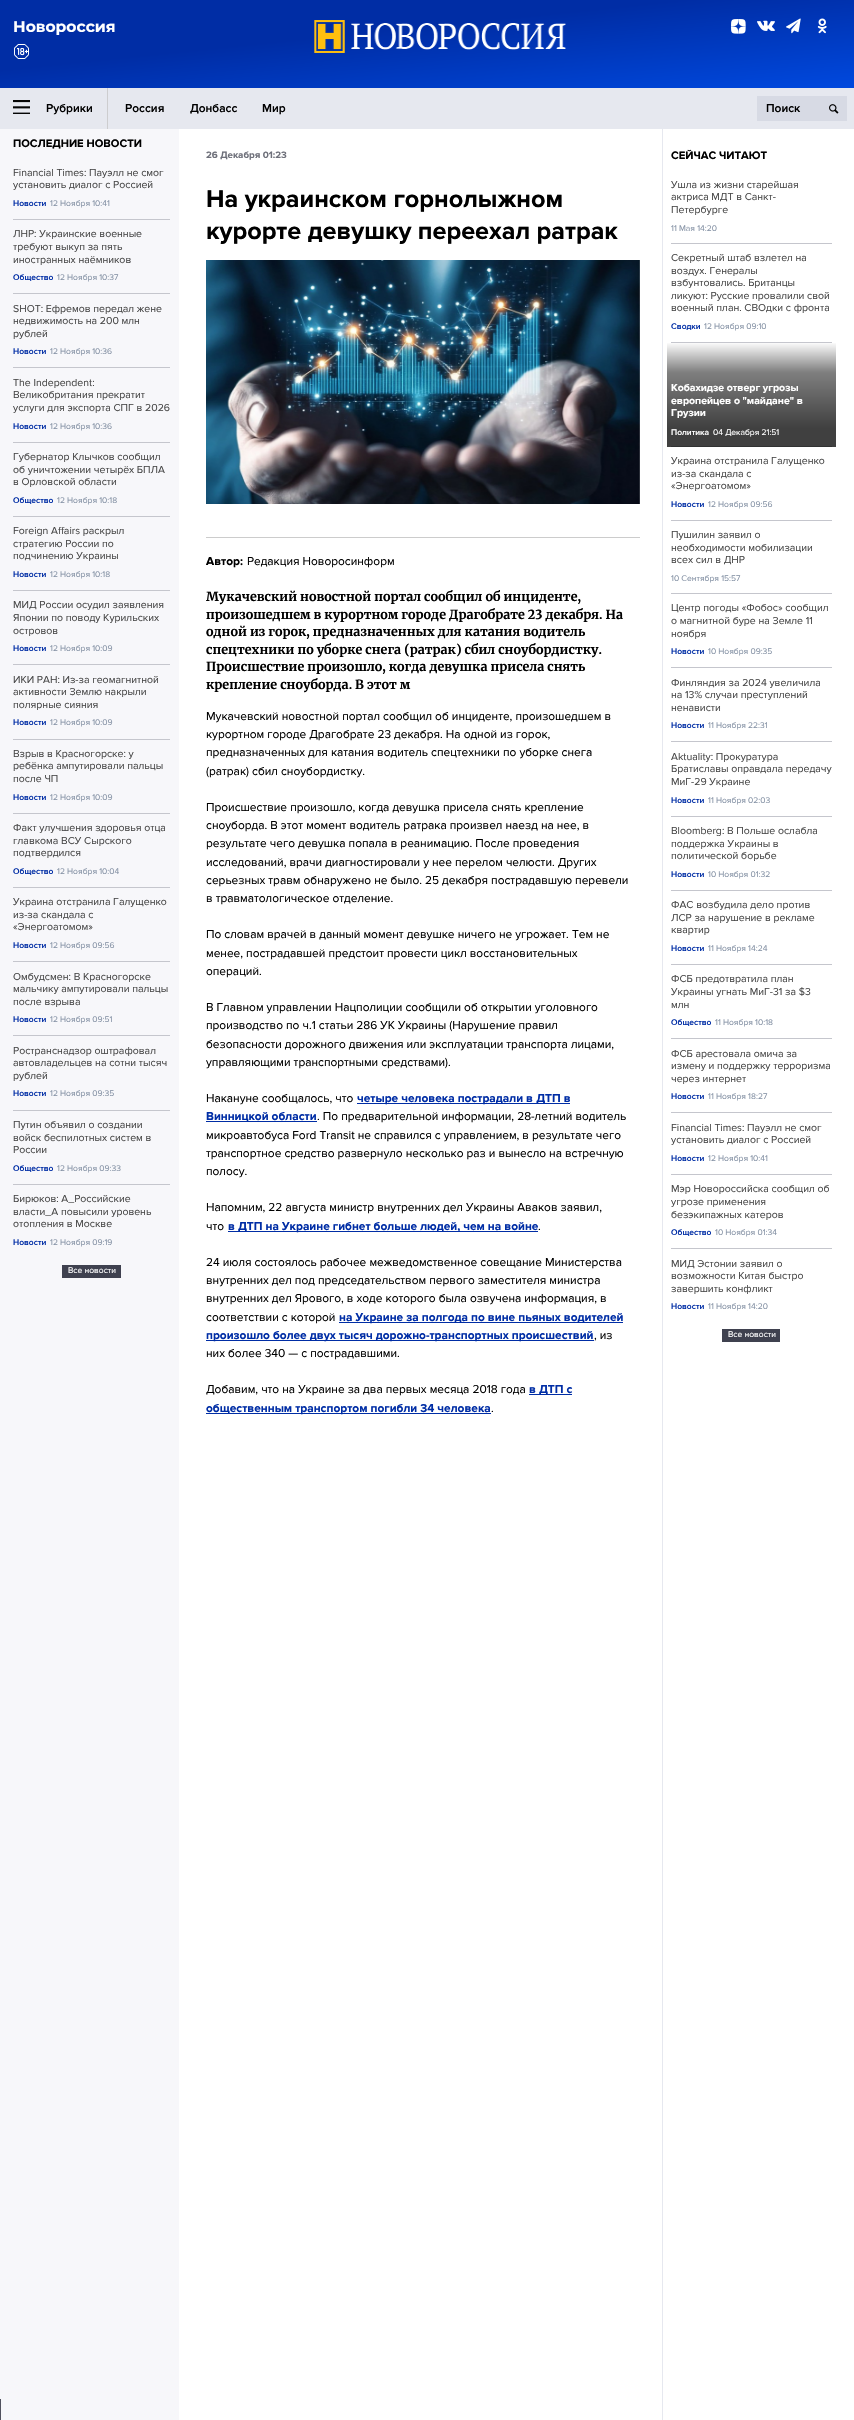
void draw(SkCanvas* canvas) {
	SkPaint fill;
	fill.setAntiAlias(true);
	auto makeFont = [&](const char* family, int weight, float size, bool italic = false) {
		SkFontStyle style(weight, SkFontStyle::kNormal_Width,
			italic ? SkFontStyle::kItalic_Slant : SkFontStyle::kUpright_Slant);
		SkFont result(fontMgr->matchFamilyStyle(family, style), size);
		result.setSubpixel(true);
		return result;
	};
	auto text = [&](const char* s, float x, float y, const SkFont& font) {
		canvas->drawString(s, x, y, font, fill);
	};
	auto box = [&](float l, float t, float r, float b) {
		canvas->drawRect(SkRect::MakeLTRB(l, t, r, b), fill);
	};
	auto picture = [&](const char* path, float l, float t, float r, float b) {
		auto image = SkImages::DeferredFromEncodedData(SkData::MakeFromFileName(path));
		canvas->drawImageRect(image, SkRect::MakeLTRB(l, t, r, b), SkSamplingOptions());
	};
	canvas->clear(0xFFFFFFFF);
	fill.setColor(0xFF404040);
	box(667, 428, 836, 447);
	{
		const SkColor colors[] = {0xFF002DA5, 0xFF0049DF};
		const float stops[] = {0.4f, 1};
		const SkPoint ends[] = {{418, -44}, {436, 132}};
		fill.setShader(SkGradientShader::MakeLinear(ends, colors, stops, 2, SkTileMode::kClamp));
		fill.setAlpha(255);
	}
	box(0, 0, 854, 88);
	picture("image0.png", 314, 20, 566, 53);
	picture("image1.png", 731, 19, 746, 34);
	picture("image2.png", 757, 20, 775, 31);
	picture("image3.png", 786, 18, 801, 34);
	picture("image4.png", 817, 18, 827, 34);
	picture("image5.png", 14, 44, 29, 59);
	fill.setShader(nullptr);
	fill.setColor(0xFFE6E8EF);
	box(0, 88, 854, 129);
	fill.setColor(0xFFCDCDCF);
	box(107, 88, 108, 129);
	picture("image6.png", 13, 100, 30, 114);
	fill.setColor(0xFFD7DAE4);
	box(757, 96, 847, 121);
	picture("image7.png", 829, 104, 839, 114);
	fill.setColor(0xFFF7F7FA);
	box(0, 129, 179, 2420);
	fill.setColor(0xFFC5C6CD);
	box(13, 219, 170, 220);
	box(13, 293, 170, 294);
	box(13, 367, 170, 368);
	box(13, 442, 170, 443);
	box(13, 516, 170, 517);
	box(13, 590, 170, 591);
	box(13, 664, 170, 665);
	box(13, 739, 170, 740);
	box(13, 813, 170, 814);
	box(13, 887, 170, 888);
	box(13, 961, 170, 962);
	box(13, 1035, 170, 1036);
	box(13, 1110, 170, 1111);
	box(13, 1184, 170, 1185);
	fill.setColor(0xFF3F414F);
	box(62, 1265, 121, 1278);
	fill.setColor(0xFFCCCCCC);
	box(206, 537, 640, 538);
	picture("image8.png", 206, 260, 640, 504);
	fill.setColor(0xFF002DA5);
	box(357, 1103, 570, 1104);
	box(206, 1121, 317, 1122);
	box(228, 1231, 538, 1232);
	box(339, 1322, 623, 1323);
	box(206, 1340, 594, 1341);
	box(529, 1394, 572, 1395);
	box(206, 1413, 491, 1414);
	fill.setColor(0xFFE6E8EF);
	box(662, 129, 663, 2420);
	fill.setColor(0xFFC5C6CD);
	box(671, 243, 832, 244);
	box(671, 342, 832, 343);
	fill.setColor(0xFF313233);
	box(671, 446, 832, 447);
	{
		const SkColor colors[] = {0x00000000, 0x80000000, 0xBF000000};
		const float stops[] = {0, 0.35f, 1};
		const SkPoint ends[] = {{752, 342}, {752, 428}};
		fill.setShader(SkGradientShader::MakeLinear(ends, colors, stops, 3, SkTileMode::kClamp));
		fill.setAlpha(255);
	}
	box(667, 343, 836, 428);
	fill.setShader(nullptr);
	fill.setColor(0xFFC5C6CD);
	box(671, 520, 832, 521);
	box(671, 593, 832, 594);
	box(671, 667, 832, 668);
	box(671, 741, 832, 742);
	box(671, 816, 832, 817);
	box(671, 890, 832, 891);
	box(671, 964, 832, 965);
	box(671, 1038, 832, 1039);
	box(671, 1112, 832, 1113);
	box(671, 1174, 832, 1175);
	box(671, 1248, 832, 1249);
	fill.setColor(0xFF3F414F);
	box(722, 1329, 780, 1342);
	fill.setColor(0xFF51525E);
	box(0, 2399, 1, 2420);
	auto font1 = makeFont("Montserrat", 700, 15.5f);
	fill.setColor(0xFFFFFFFF);
	text("Новороссия", 13, 32, font1);
	auto font2 = makeFont("Proxima Nova", 600, 11.9f);
	fill.setColor(0xFF000000);
	text("Рубрики", 46, 112, font2);
	text("Россия", 125, 112, font2);
	text("Донбасс", 190, 112, font2);
	text("Мир", 262, 112, font2);
	text("Поиск", 766, 112, font2);
	auto font3 = makeFont("Proxima Nova", 700, 11.25f);
	text("ПОСЛЕДНИЕ НОВОСТИ", 13, 147, font3);
	auto font4 = makeFont("Proxima Nova", 400, 10.5f);
	fill.setColor(0xFF484848);
	text("Financial Times: Пауэлл не смог", 13, 176, font4);
	text("установить диалог с Россией", 13, 188, font4);
	auto font5 = makeFont("Proxima Nova", 600, 8.5f);
	fill.setColor(0xFF002DA5);
	text("Новости", 13, 206, font5);
	auto font6 = makeFont("Proxima Nova", 400, 8.5f);
	fill.setColor(0xFF8592A5);
	text("12 Ноября 10:41", 50, 206, font6);
	fill.setColor(0xFF484848);
	text("ЛНР: Украинские военные", 13, 237, font4);
	text("требуют выкуп за пять", 13, 250, font4);
	text("иностранных наёмников", 13, 263, font4);
	fill.setColor(0xFF002DA5);
	text("Общество", 13, 280, font5);
	fill.setColor(0xFF8592A5);
	text("12 Ноября 10:37", 57, 280, font6);
	fill.setColor(0xFF484848);
	text("SHOT: Ефремов передал жене", 13, 312, font4);
	text("недвижимость на 200 млн", 13, 324, font4);
	text("рублей", 13, 337, font4);
	fill.setColor(0xFF002DA5);
	text("Новости", 13, 354, font5);
	fill.setColor(0xFF8592A5);
	text("12 Ноября 10:36", 50, 354, font6);
	fill.setColor(0xFF484848);
	text("The Independent:", 13, 386, font4);
	text("Великобритания прекратит", 13, 398, font4);
	text("услуги для экспорта СПГ в 2026", 13, 411, font4);
	fill.setColor(0xFF002DA5);
	text("Новости", 13, 429, font5);
	fill.setColor(0xFF8592A5);
	text("12 Ноября 10:36", 50, 429, font6);
	fill.setColor(0xFF484848);
	text("Губернатор Клычков сообщил", 13, 460, font4);
	text("об уничтожении четырёх БПЛА", 13, 473, font4);
	text("в Орловской области", 13, 485, font4);
	fill.setColor(0xFF002DA5);
	text("Общество", 13, 503, font5);
	fill.setColor(0xFF8592A5);
	text("12 Ноября 10:18", 57, 503, font6);
	fill.setColor(0xFF484848);
	text("Foreign Affairs раскрыл", 13, 534, font4);
	text("стратегию России по", 13, 547, font4);
	text("подчинению Украины", 13, 559, font4);
	fill.setColor(0xFF002DA5);
	text("Новости", 13, 577, font5);
	fill.setColor(0xFF8592A5);
	text("12 Ноября 10:18", 50, 577, font6);
	fill.setColor(0xFF484848);
	text("МИД России осудил заявления", 13, 608, font4);
	text("Японии по поводу Курильских", 13, 621, font4);
	text("островов", 13, 634, font4);
	fill.setColor(0xFF002DA5);
	text("Новости", 13, 651, font5);
	fill.setColor(0xFF8592A5);
	text("12 Ноября 10:09", 50, 651, font6);
	fill.setColor(0xFF484848);
	text("ИКИ РАН: Из-за геомагнитной", 13, 683, font4);
	text("активности Землю накрыли", 13, 695, font4);
	text("полярные сияния", 13, 708, font4);
	fill.setColor(0xFF002DA5);
	text("Новости", 13, 725, font5);
	fill.setColor(0xFF8592A5);
	text("12 Ноября 10:09", 50, 725, font6);
	fill.setColor(0xFF484848);
	text("Взрыв в Красногорске: у", 13, 757, font4);
	text("ребёнка ампутировали пальцы", 13, 769, font4);
	text("после ЧП", 13, 782, font4);
	fill.setColor(0xFF002DA5);
	text("Новости", 13, 800, font5);
	fill.setColor(0xFF8592A5);
	text("12 Ноября 10:09", 50, 800, font6);
	fill.setColor(0xFF484848);
	text("Факт улучшения здоровья отца", 13, 831, font4);
	text("главкома ВСУ Сырского", 13, 844, font4);
	text("подтвердился", 13, 856, font4);
	fill.setColor(0xFF002DA5);
	text("Общество", 13, 874, font5);
	fill.setColor(0xFF8592A5);
	text("12 Ноября 10:04", 57, 874, font6);
	fill.setColor(0xFF484848);
	text("Украина отстранила Галущенко", 13, 905, font4);
	text("из-за скандала с", 13, 918, font4);
	text("«Энергоатомом»", 13, 930, font4);
	fill.setColor(0xFF002DA5);
	text("Новости", 13, 948, font5);
	fill.setColor(0xFF8592A5);
	text("12 Ноября 09:56", 50, 948, font6);
	fill.setColor(0xFF484848);
	text("Омбудсмен: В Красногорске", 13, 980, font4);
	text("мальчику ампутировали пальцы", 13, 992, font4);
	text("после взрыва", 13, 1005, font4);
	fill.setColor(0xFF002DA5);
	text("Новости", 13, 1022, font5);
	fill.setColor(0xFF8592A5);
	text("12 Ноября 09:51", 50, 1022, font6);
	fill.setColor(0xFF484848);
	text("Ространснадзор оштрафовал", 13, 1054, font4);
	text("автовладельцев на сотни тысяч", 13, 1066, font4);
	text("рублей", 13, 1079, font4);
	fill.setColor(0xFF002DA5);
	text("Новости", 13, 1096, font5);
	fill.setColor(0xFF8592A5);
	text("12 Ноября 09:35", 50, 1096, font6);
	fill.setColor(0xFF484848);
	text("Путин объявил о создании", 13, 1128, font4);
	text("войск беспилотных систем в", 13, 1141, font4);
	text("России", 13, 1153, font4);
	fill.setColor(0xFF002DA5);
	text("Общество", 13, 1171, font5);
	fill.setColor(0xFF8592A5);
	text("12 Ноября 09:33", 57, 1171, font6);
	fill.setColor(0xFF484848);
	text("Бирюков: A_Российские", 13, 1202, font4);
	text("власти_A повысили уровень", 13, 1215, font4);
	text("отопления в Москве", 13, 1227, font4);
	fill.setColor(0xFF002DA5);
	text("Новости", 13, 1245, font5);
	fill.setColor(0xFF8592A5);
	text("12 Ноября 09:19", 50, 1245, font6);
	fill.setColor(0xFFFFFFFF);
	text("Все новости", 68, 1273, font6);
	auto font7 = makeFont("Proxima Nova", 700, 9.75f);
	fill.setColor(0xFF6E707A);
	text("26 Декабря 01:23", 206, 158, font7);
	auto font8 = makeFont("Proxima Nova", 700, 25.25f);
	fill.setColor(0xFF000000);
	text("На украинском горнолыжном", 206, 207, font8);
	text("курорте девушку переехал ратрак", 206, 239, font8);
	auto font9 = makeFont("Proxima Nova", 700, 11.9f);
	text("Автор:", 206, 565, font9);
	auto font10 = makeFont("Proxima Nova", 400, 11.9f);
	text("Редакция Новоросинформ", 247, 565, font10);
	auto font11 = makeFont("Merriweather", 700, 12.6f);
	text("Мукачевский новостной портал сообщил об инциденте,", 206, 601, font11);
	text("произошедшем в курортном городе Драгобрате 23 декабря. На", 206, 619, font11);
	text("одной из горок, предназначенных для катания водитель", 206, 636, font11);
	text("спецтехники по уборке снега (ратрак) сбил сноубордистку.", 206, 654, font11);
	text("Происшествие произошло, когда девушка присела снять", 206, 671, font11);
	text("крепление сноуборда. В этот м", 206, 689, font11);
	text("Мукачевский новостной портал сообщил об инциденте, произошедшем в", 206, 720, font10);
	text("курортном городе Драгобрате 23 декабря. На одной из горок,", 206, 738, font10);
	text("предназначенных для катания водитель спецтехники по уборке снега", 206, 756, font10);
	text("(ратрак) сбил сноубордистку.", 206, 775, font10);
	text("Происшествие произошло, когда девушка присела снять крепление", 206, 811, font10);
	text("сноуборда. В этот момент водитель ратрака произвел наезд на нее, в", 206, 829, font10);
	text("результате чего девушка попала в реанимацию. После проведения", 206, 847, font10);
	text("исследований, врачи диагностировали у нее перелом челюсти. Других", 206, 866, font10);
	text("серьезных травм обнаружено не было. 25 декабря пострадавшую перевели", 206, 884, font10);
	text("в травматологическое отделение.", 206, 902, font10);
	text("По словам врачей в данный момент девушке ничего не угрожает. Тем не", 206, 938, font10);
	text("менее, пострадавшей предстоит провести цикл восстановительных", 206, 957, font10);
	text("операций.", 206, 975, font10);
	text("В Главном управлении Нацполиции сообщили об открытии уголовного", 206, 1011, font10);
	text("производство по ч.1 статьи 286 УК Украины (Нарушение правил", 206, 1029, font10);
	text("безопасности дорожного движения или эксплуатации транспорта лицами,", 206, 1048, font10);
	text("управляющими транспортными средствами).", 206, 1066, font10);
	text("Накануне сообщалось, что", 206, 1102, font10);
	fill.setColor(0xFF002DA5);
	text("четыре человека пострадали в ДТП в", 357, 1102, font9);
	text("Винницкой области", 206, 1120, font9);
	fill.setColor(0xFF000000);
	text(". По предварительной информации, 28-летний водитель", 317, 1120, font10);
	text("микроавтобуса Ford Transit не справился с управлением, в результате чего", 206, 1139, font10);
	text("транспортное средство развернуло несколько раз и вынесло на встречную", 206, 1157, font10);
	text("полосу.", 206, 1175, font10);
	text("Напомним, 22 августа министр внутренних дел Украины Аваков заявил,", 206, 1211, font10);
	text("что", 206, 1230, font10);
	fill.setColor(0xFF002DA5);
	text("в ДТП на Украине гибнет больше людей, чем на войне", 228, 1230, font9);
	fill.setColor(0xFF000000);
	text(".", 538, 1230, font10);
	text("24 июля состоялось рабочее межведомственное совещание Министерства", 206, 1266, font10);
	text("внутренних дел под председательством первого заместителя министра", 206, 1284, font10);
	text("внутренних дел Ярового, в ходе которого была озвучена информация, в", 206, 1302, font10);
	text("соответствии с которой", 206, 1321, font10);
	fill.setColor(0xFF002DA5);
	text("на Украине за полгода по вине пьяных водителей", 339, 1321, font9);
	text("произошло более двух тысяч дорожно-транспортных происшествий", 206, 1339, font9);
	fill.setColor(0xFF000000);
	text(", из", 594, 1339, font10);
	text("них более 340 — с пострадавшими.", 206, 1357, font10);
	text("Добавим, что на Украине за два первых месяца 2018 года", 206, 1393, font10);
	fill.setColor(0xFF002DA5);
	text("в ДТП с", 529, 1393, font9);
	text("общественным транспортом погибли 34 человека", 206, 1412, font9);
	fill.setColor(0xFF000000);
	text(".", 491, 1412, font10);
	text("СЕЙЧАС ЧИТАЮТ", 671, 159, font3);
	fill.setColor(0xFF484848);
	text("Ушла из жизни старейшая", 671, 188, font4);
	text("актриса МДТ в Санкт-", 671, 200, font4);
	text("Петербурге", 671, 213, font4);
	fill.setColor(0xFF8592A5);
	text("11 Мая 14:20", 671, 231, font6);
	fill.setColor(0xFF484848);
	text("Секретный штаб взлетел на", 671, 261, font4);
	text("воздух. Генералы", 671, 274, font4);
	text("взбунтовались. Британцы", 671, 286, font4);
	text("ликуют: Русские провалили свой", 671, 299, font4);
	text("военный план. СВОдки с фронта", 671, 311, font4);
	fill.setColor(0xFF002DA5);
	text("Сводки", 671, 329, font5);
	fill.setColor(0xFF8592A5);
	text("12 Ноября 09:10", 704, 329, font6);
	auto font12 = makeFont("Proxima Nova", 700, 10.5f);
	fill.setColor(0xFFFFFFFF);
	text("Кобахидзе отверг угрозы", 671, 391, font12);
	text("европейцев о \"майдане\" в", 671, 404, font12);
	text("Грузии", 671, 416, font12);
	text("Политика", 671, 435, font5);
	text("04 Декабря 21:51", 713, 435, font6);
	fill.setColor(0xFF484848);
	text("Украина отстранила Галущенко", 671, 464, font4);
	text("из-за скандала с", 671, 477, font4);
	text("«Энергоатомом»", 671, 489, font4);
	fill.setColor(0xFF002DA5);
	text("Новости", 671, 507, font5);
	fill.setColor(0xFF8592A5);
	text("12 Ноября 09:56", 708, 507, font6);
	fill.setColor(0xFF484848);
	text("Пушилин заявил о", 671, 538, font4);
	text("необходимости мобилизации", 671, 551, font4);
	text("всех сил в ДНР", 671, 563, font4);
	fill.setColor(0xFF8592A5);
	text("10 Сентября 15:57", 671, 581, font6);
	fill.setColor(0xFF484848);
	text("Центр погоды «Фобос» сообщил", 671, 611, font4);
	text("о магнитной буре на Земле 11", 671, 624, font4);
	text("ноября", 671, 637, font4);
	fill.setColor(0xFF002DA5);
	text("Новости", 671, 654, font5);
	fill.setColor(0xFF8592A5);
	text("10 Ноября 09:35", 708, 654, font6);
	fill.setColor(0xFF484848);
	text("Финляндия за 2024 увеличила", 671, 686, font4);
	text("на 13% случаи преступлений", 671, 698, font4);
	text("ненависти", 671, 711, font4);
	fill.setColor(0xFF002DA5);
	text("Новости", 671, 728, font5);
	fill.setColor(0xFF8592A5);
	text("11 Ноября 22:31", 708, 728, font6);
	fill.setColor(0xFF484848);
	text("Aktuality: Прокуратура", 671, 760, font4);
	text("Братиславы оправдала передачу", 671, 772, font4);
	text("МиГ-29 Украине", 671, 785, font4);
	fill.setColor(0xFF002DA5);
	text("Новости", 671, 803, font5);
	fill.setColor(0xFF8592A5);
	text("11 Ноября 02:03", 708, 803, font6);
	fill.setColor(0xFF484848);
	text("Bloomberg: В Польше ослабла", 671, 834, font4);
	text("поддержка Украины в", 671, 847, font4);
	text("политической борьбе", 671, 859, font4);
	fill.setColor(0xFF002DA5);
	text("Новости", 671, 877, font5);
	fill.setColor(0xFF8592A5);
	text("10 Ноября 01:32", 708, 877, font6);
	fill.setColor(0xFF484848);
	text("ФАС возбудила дело против", 671, 908, font4);
	text("ЛСР за нарушение в рекламе", 671, 921, font4);
	text("квартир", 671, 933, font4);
	fill.setColor(0xFF002DA5);
	text("Новости", 671, 951, font5);
	fill.setColor(0xFF8592A5);
	text("11 Ноября 14:24", 708, 951, font6);
	fill.setColor(0xFF484848);
	text("ФСБ предотвратила план", 671, 982, font4);
	text("Украины угнать МиГ-31 за $3", 671, 995, font4);
	text("млн", 671, 1008, font4);
	fill.setColor(0xFF002DA5);
	text("Общество", 671, 1025, font5);
	fill.setColor(0xFF8592A5);
	text("11 Ноября 10:18", 715, 1025, font6);
	fill.setColor(0xFF484848);
	text("ФСБ арестовала омича за", 671, 1057, font4);
	text("измену и поддержку терроризма", 671, 1069, font4);
	text("через интернет", 671, 1082, font4);
	fill.setColor(0xFF002DA5);
	text("Новости", 671, 1099, font5);
	fill.setColor(0xFF8592A5);
	text("11 Ноября 18:27", 708, 1099, font6);
	fill.setColor(0xFF484848);
	text("Financial Times: Пауэлл не смог", 671, 1131, font4);
	text("установить диалог с Россией", 671, 1143, font4);
	fill.setColor(0xFF002DA5);
	text("Новости", 671, 1161, font5);
	fill.setColor(0xFF8592A5);
	text("12 Ноября 10:41", 708, 1161, font6);
	fill.setColor(0xFF484848);
	text("Мэр Новороссийска сообщил об", 671, 1192, font4);
	text("угрозе применения", 671, 1205, font4);
	text("безэкипажных катеров", 671, 1218, font4);
	fill.setColor(0xFF002DA5);
	text("Общество", 671, 1235, font5);
	fill.setColor(0xFF8592A5);
	text("10 Ноября 01:34", 715, 1235, font6);
	fill.setColor(0xFF484848);
	text("МИД Эстонии заявил о", 671, 1267, font4);
	text("возможности Китая быстро", 671, 1279, font4);
	text("завершить конфликт", 671, 1292, font4);
	fill.setColor(0xFF002DA5);
	text("Новости", 671, 1309, font5);
	fill.setColor(0xFF8592A5);
	text("11 Ноября 14:20", 708, 1309, font6);
	fill.setColor(0xFFFFFFFF);
	text("Все новости", 728, 1337, font6);
}
